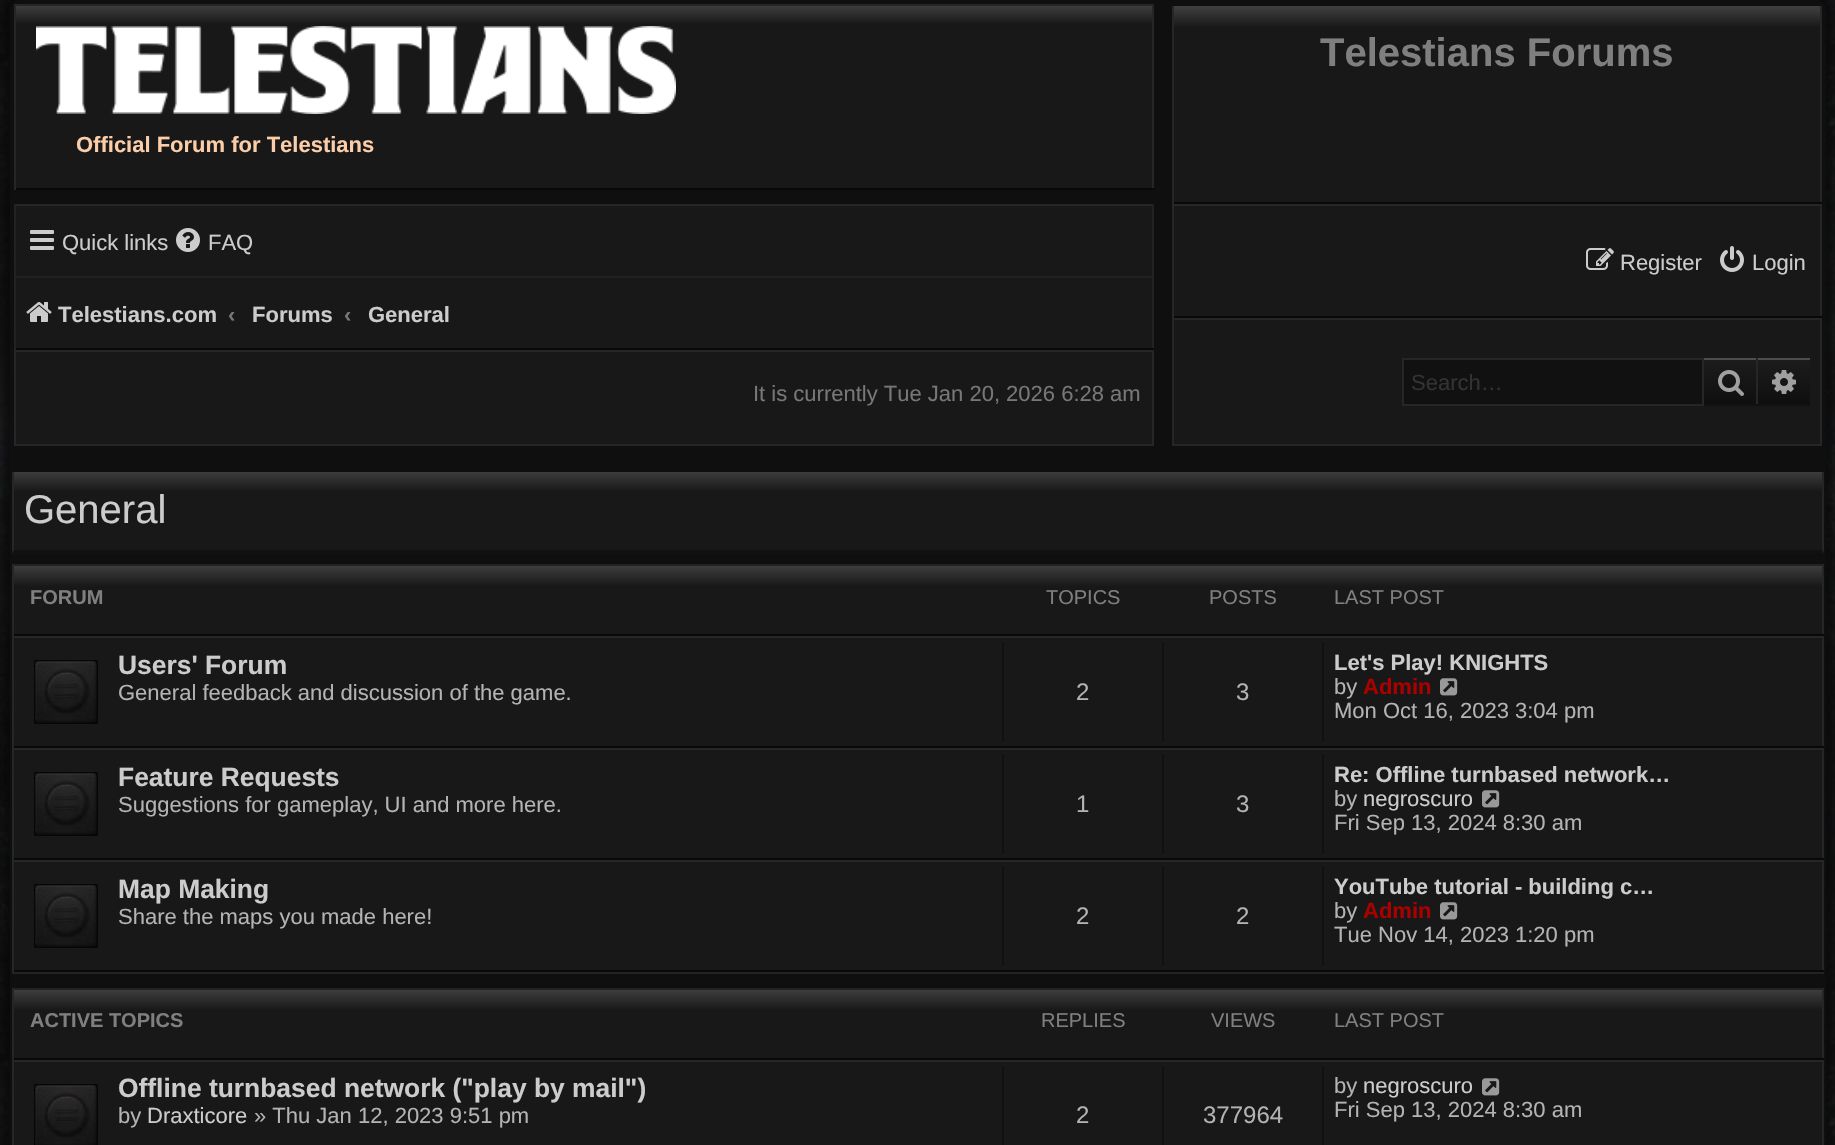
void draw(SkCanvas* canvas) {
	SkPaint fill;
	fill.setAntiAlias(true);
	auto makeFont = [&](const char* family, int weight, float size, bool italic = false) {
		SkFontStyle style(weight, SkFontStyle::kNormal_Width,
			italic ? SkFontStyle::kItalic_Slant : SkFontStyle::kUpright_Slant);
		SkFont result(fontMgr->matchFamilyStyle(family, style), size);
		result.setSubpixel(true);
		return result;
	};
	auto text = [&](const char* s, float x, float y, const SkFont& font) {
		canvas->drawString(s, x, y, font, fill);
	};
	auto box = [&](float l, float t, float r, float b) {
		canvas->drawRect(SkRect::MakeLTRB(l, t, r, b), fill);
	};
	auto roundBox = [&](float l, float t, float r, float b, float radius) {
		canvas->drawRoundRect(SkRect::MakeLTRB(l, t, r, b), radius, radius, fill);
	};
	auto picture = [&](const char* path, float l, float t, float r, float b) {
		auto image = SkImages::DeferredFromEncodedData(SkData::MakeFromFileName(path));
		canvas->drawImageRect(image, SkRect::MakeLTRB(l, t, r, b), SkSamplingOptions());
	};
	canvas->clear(0xFFFFFFFF);
	picture("image0.png", 0, 0, 1835, 1145);
	fill.setColor(0xE6050505);
	fill.setMaskFilter(SkMaskFilter::MakeBlur(kNormal_SkBlurStyle, 9));
	canvas->drawRoundRect(SkRect::MakeLTRB(0, -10, 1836, 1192), 20, 20, fill);
	fill.setMaskFilter(nullptr);
	fill.setColor(0xFF0F0F0F);
	roundBox(10, 0, 1826, 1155, 10);
	{
		const SkColor colors[] = {0xFF3D3D3D, 0xFF181818, 0xFF181818};
		const float stops[] = {0, 0.1f, 1};
		const SkPoint ends[] = {{1497, 8}, {1497, 202}};
		fill.setShader(SkGradientShader::MakeLinear(ends, colors, stops, 3, SkTileMode::kClamp));
		fill.setAlpha(255);
	}
	box(1174, 8, 1820, 202);
	fill.setShader(nullptr);
	fill.setColor(0xFF3D3D3D);
	box(1172, 6, 1822, 8);
	fill.setColor(0xFF262626);
	box(1820, 6, 1822, 204);
	fill.setColor(0xFF090909);
	box(1172, 202, 1822, 204);
	fill.setColor(0xFF262626);
	box(1172, 6, 1174, 204);
	{
		const SkColor colors[] = {0xFF3D3D3D, 0xFF181818, 0xFF181818};
		const float stops[] = {0, 0.1f, 1};
		const SkPoint ends[] = {{584, 6}, {584, 188}};
		fill.setShader(SkGradientShader::MakeLinear(ends, colors, stops, 3, SkTileMode::kClamp));
		fill.setAlpha(255);
	}
	box(16, 6, 1152, 188);
	fill.setShader(nullptr);
	fill.setColor(0xFF262626);
	box(14, 4, 1154, 6);
	box(1152, 4, 1154, 190);
	fill.setColor(0xFF090909);
	box(14, 188, 1154, 190);
	fill.setColor(0xFF262626);
	box(14, 4, 16, 190);
	picture("image1.png", 36, 26, 676, 114);
	fill.setColor(0xFF181818);
	box(16, 206, 1152, 348);
	fill.setColor(0xFF262626);
	box(14, 204, 1154, 206);
	fill.setColor(0xFF222222);
	box(1152, 204, 1154, 350);
	fill.setColor(0xFF090909);
	box(14, 348, 1154, 350);
	fill.setColor(0xFF222222);
	box(14, 204, 16, 350);
	picture("image2.png", 30, 230, 54, 250);
	picture("image3.png", 176, 228, 200, 252);
	fill.setColor(0xFF212121);
	box(16, 276, 1152, 278);
	picture("image4.png", 26, 302, 52, 322);
	fill.setColor(0xFF181818);
	box(1174, 206, 1820, 316);
	fill.setColor(0xFF262626);
	box(1172, 204, 1822, 206);
	box(1820, 204, 1822, 318);
	fill.setColor(0xFF090909);
	box(1172, 316, 1822, 318);
	fill.setColor(0xFF262626);
	box(1172, 204, 1174, 318);
	picture("image5.png", 1586, 248, 1614, 270);
	picture("image6.png", 1720, 246, 1744, 272);
	fill.setColor(0xFF181818);
	canvas->drawRect(SkRect::MakeLTRB(1173, 319, 1821, 445), fill);
	fill.setStyle(SkPaint::kStroke_Style);
	fill.setStrokeWidth(2);
	fill.setColor(0xFF262626);
	canvas->drawRect(SkRect::MakeLTRB(1173, 319, 1821, 445), fill);
	fill.setStyle(SkPaint::kFill_Style);
	{
		const SkColor colors[] = {0xFF1C1C1C, 0xFF0F0F0F};
		const float stops[] = {0, 1};
		const SkPoint ends[] = {{1730, 360}, {1730, 404}};
		fill.setShader(SkGradientShader::MakeLinear(ends, colors, stops, 2, SkTileMode::kClamp));
		fill.setAlpha(255);
	}
	box(1704, 360, 1756, 404);
	fill.setShader(nullptr);
	fill.setColor(0xFF4D4D4D);
	box(1702, 358, 1810, 360);
	fill.setColor(0xFF262626);
	box(1756, 358, 1758, 406);
	fill.setColor(0xFF111111);
	box(1702, 404, 1810, 406);
	fill.setColor(0xFF262626);
	box(1702, 358, 1704, 406);
	picture("image7.png", 1718, 370, 1744, 396);
	fill.setColor(0xFF111111);
	box(1404, 360, 1702, 404);
	fill.setColor(0xFF262626);
	box(1402, 358, 1702, 360);
	box(1402, 404, 1702, 406);
	box(1402, 358, 1404, 406);
	{
		const SkColor colors[] = {0xFF1C1C1C, 0xFF0F0F0F};
		const float stops[] = {0, 1};
		const SkPoint ends[] = {{1784, 360}, {1784, 404}};
		fill.setShader(SkGradientShader::MakeLinear(ends, colors, stops, 2, SkTileMode::kClamp));
		fill.setAlpha(255);
	}
	box(1758, 360, 1810, 404);
	picture("image8.png", 1772, 370, 1796, 394);
	fill.setShader(nullptr);
	fill.setColor(0xFF181818);
	canvas->drawRect(SkRect::MakeLTRB(15, 351, 1153, 445), fill);
	fill.setStyle(SkPaint::kStroke_Style);
	fill.setColor(0xFF262626);
	canvas->drawRect(SkRect::MakeLTRB(15, 351, 1153, 445), fill);
	fill.setStyle(SkPaint::kFill_Style);
	{
		const SkColor colors[] = {0xFF3D3D3D, 0xFF181818, 0xFF181818};
		const float stops[] = {0, 0.25f, 1};
		const SkPoint ends[] = {{918, 472}, {918, 550}};
		fill.setShader(SkGradientShader::MakeLinear(ends, colors, stops, 3, SkTileMode::kClamp));
		fill.setAlpha(255);
	}
	box(14, 472, 1822, 550);
	fill.setShader(nullptr);
	fill.setColor(0xFF262626);
	canvas->drawPath(SkPathBuilder().moveTo(1824, 472).lineTo(1824, 554).lineTo(1822, 550).lineTo(1822, 472).close().detach(), fill);
	fill.setColor(0xFF111111);
	canvas->drawPath(SkPathBuilder().moveTo(1824, 554).lineTo(12, 554).lineTo(14, 550).lineTo(1822, 550).close().detach(), fill);
	fill.setColor(0xFF262626);
	canvas->drawPath(SkPathBuilder().moveTo(12, 554).lineTo(12, 472).lineTo(14, 472).lineTo(14, 550).close().detach(), fill);
	{
		const SkColor colors[] = {0xFF3D3D3D, 0xFF181818, 0xFF181818};
		const float stops[] = {0, 0.3f, 1};
		const SkPoint ends[] = {{918, 566}, {918, 634}};
		fill.setShader(SkGradientShader::MakeLinear(ends, colors, stops, 3, SkTileMode::kClamp));
		fill.setAlpha(255);
	}
	box(14, 566, 1822, 634);
	fill.setShader(nullptr);
	fill.setColor(0xFF222222);
	box(12, 564, 1824, 566);
	fill.setColor(0xFF262626);
	box(1822, 564, 1824, 636);
	fill.setColor(0xFF090909);
	box(12, 634, 1824, 636);
	fill.setColor(0xFF262626);
	box(12, 564, 14, 636);
	fill.setColor(0xFF181818);
	box(14, 638, 1822, 970);
	fill.setColor(0xFF262626);
	box(12, 636, 1824, 638);
	box(1822, 636, 1824, 748);
	fill.setColor(0xFF090909);
	box(12, 746, 1824, 748);
	fill.setColor(0xFF262626);
	box(12, 636, 14, 748);
	picture("image9.png", 34, 660, 98, 724);
	fill.setColor(0xFF111111);
	box(1002, 642, 1004, 742);
	box(1162, 642, 1164, 742);
	box(1322, 642, 1324, 742);
	picture("image10.png", 1440, 678, 1458, 696);
	fill.setColor(0xFF262626);
	box(12, 748, 1824, 750);
	box(1822, 748, 1824, 860);
	fill.setColor(0xFF090909);
	box(12, 858, 1824, 860);
	fill.setColor(0xFF262626);
	box(12, 748, 14, 860);
	picture("image9.png", 34, 772, 98, 836);
	fill.setColor(0xFF111111);
	box(1002, 754, 1004, 854);
	box(1162, 754, 1164, 854);
	box(1322, 754, 1324, 854);
	picture("image10.png", 1482, 790, 1500, 808);
	fill.setColor(0xFF262626);
	box(12, 860, 1824, 862);
	box(1822, 860, 1824, 972);
	fill.setColor(0xFF090909);
	box(12, 970, 1824, 972);
	fill.setColor(0xFF262626);
	box(12, 860, 14, 972);
	picture("image9.png", 34, 884, 98, 948);
	fill.setColor(0xFF111111);
	box(1002, 866, 1004, 966);
	box(1162, 866, 1164, 966);
	box(1322, 866, 1324, 966);
	picture("image10.png", 1440, 902, 1458, 920);
	fill.setColor(0xFF232323);
	box(12, 972, 1824, 974);
	{
		const SkColor colors[] = {0xFF3D3D3D, 0xFF181818, 0xFF181818};
		const float stops[] = {0, 0.3f, 1};
		const SkPoint ends[] = {{918, 990}, {918, 1058}};
		fill.setShader(SkGradientShader::MakeLinear(ends, colors, stops, 3, SkTileMode::kClamp));
		fill.setAlpha(255);
	}
	box(14, 990, 1822, 1058);
	fill.setShader(nullptr);
	fill.setColor(0xFF222222);
	box(12, 988, 1824, 990);
	fill.setColor(0xFF262626);
	box(1822, 988, 1824, 1060);
	fill.setColor(0xFF090909);
	box(12, 1058, 1824, 1060);
	fill.setColor(0xFF262626);
	box(12, 988, 14, 1060);
	fill.setColor(0xFF181818);
	box(14, 1062, 1822, 1145);
	fill.setColor(0xFF262626);
	box(12, 1060, 1824, 1062);
	box(1822, 1060, 1824, 1145);
	box(12, 1060, 14, 1145);
	picture("image11.png", 34, 1084, 98, 1145);
	fill.setColor(0xFF111111);
	box(1002, 1066, 1004, 1145);
	box(1162, 1066, 1164, 1145);
	box(1322, 1066, 1324, 1145);
	picture("image10.png", 1482, 1078, 1500, 1096);
	auto font1 = makeFont("Liberation Sans", 700, 40);
	fill.setColor(0xFF7F7F7F);
	text("Telestians Forums", 1320, 66, font1);
	auto font2 = makeFont("Liberation Sans", 700, 22);
	fill.setColor(0xFFFBCEA9);
	text("Official Forum for Telestians", 76, 152, font2);
	auto font3 = makeFont("Liberation Sans", 400, 22);
	fill.setColor(0xFFCCCCCC);
	text("Quick links", 62, 250, font3);
	text("FAQ", 208, 250, font3);
	text("Telestians.com", 58, 322, font2);
	fill.setColor(0xFF777777);
	text("‹", 228, 322, font2);
	fill.setColor(0xFFCCCCCC);
	text("Forums", 252, 322, font2);
	fill.setColor(0xFF777777);
	text("‹", 344, 322, font2);
	fill.setColor(0xFFCCCCCC);
	text("General", 368, 322, font2);
	text("Register", 1620, 270, font3);
	text("Login", 1752, 270, font3);
	fill.setColor(0xFF333333);
	text("Search…", 1411, 390, font3);
	fill.setColor(0xFF777777);
	text("It is currently Tue Jan 20, 2026 6:28 am", 753, 401, font3);
	auto font4 = makeFont("Liberation Sans", 400, 40);
	fill.setColor(0xFFCCCCCC);
	text("General", 24, 523, font4);
	auto font5 = makeFont("Liberation Sans", 700, 20);
	fill.setColor(0xFF7F7F7F);
	text("FORUM", 30, 604, font5);
	auto font6 = makeFont("Liberation Sans", 400, 20);
	text("TOPICS", 1046, 604, font6);
	text("POSTS", 1209, 604, font6);
	text("LAST POST", 1334, 604, font6);
	auto font7 = makeFont("Liberation Sans", 700, 26.4f);
	fill.setColor(0xFFCCCCCC);
	text("Users' Forum", 118, 674, font7);
	fill.setColor(0xFFB3B3B3);
	text("General feedback and discussion of the game.", 118, 700, font3);
	auto font8 = makeFont("Liberation Sans", 400, 24);
	text("2", 1076, 700, font8);
	text("3", 1236, 700, font8);
	fill.setColor(0xFFCCCCCC);
	text("Let's Play! KNIGHTS", 1334, 670, font2);
	fill.setColor(0xFFB3B3B3);
	text("by", 1334, 694, font3);
	fill.setColor(0xFFAA0000);
	text("Admin", 1363, 694, font2);
	fill.setColor(0xFFB3B3B3);
	text("Mon Oct 16, 2023 3:04 pm", 1334, 718, font3);
	fill.setColor(0xFFCCCCCC);
	text("Feature Requests", 118, 786, font7);
	fill.setColor(0xFFB3B3B3);
	text("Suggestions for gameplay, UI and more here.", 118, 812, font3);
	text("1", 1076, 812, font8);
	text("3", 1236, 812, font8);
	fill.setColor(0xFFCCCCCC);
	text("Re: Offline turnbased network…", 1334, 782, font2);
	fill.setColor(0xFFB3B3B3);
	text("by", 1334, 806, font3);
	fill.setColor(0xFFCCCCCC);
	text("negroscuro", 1363, 806, font3);
	fill.setColor(0xFFB3B3B3);
	text("Fri Sep 13, 2024 8:30 am", 1334, 830, font3);
	fill.setColor(0xFFCCCCCC);
	text("Map Making", 118, 898, font7);
	fill.setColor(0xFFB3B3B3);
	text("Share the maps you made here!", 118, 924, font3);
	text("2", 1076, 924, font8);
	text("2", 1236, 924, font8);
	fill.setColor(0xFFCCCCCC);
	text("YouTube tutorial - building c…", 1334, 894, font2);
	fill.setColor(0xFFB3B3B3);
	text("by", 1334, 918, font3);
	fill.setColor(0xFFAA0000);
	text("Admin", 1363, 918, font2);
	fill.setColor(0xFFB3B3B3);
	text("Tue Nov 14, 2023 1:20 pm", 1334, 942, font3);
	fill.setColor(0xFF7F7F7F);
	text("ACTIVE TOPICS", 30, 1027, font5);
	text("REPLIES", 1041, 1027, font6);
	text("VIEWS", 1211, 1027, font6);
	text("LAST POST", 1334, 1027, font6);
	fill.setColor(0xFFCCCCCC);
	text("Offline turnbased network (\"play by mail\")", 118, 1097, font7);
	fill.setColor(0xFFB3B3B3);
	text("by", 118, 1123, font3);
	fill.setColor(0xFFCCCCCC);
	text("Draxticore", 147, 1123, font3);
	fill.setColor(0xFFB3B3B3);
	text("» Thu Jan 12, 2023 9:51 pm", 254, 1123, font3);
	text("2", 1076, 1123, font8);
	text("377964", 1203, 1123, font8);
	text("by", 1334, 1093, font3);
	fill.setColor(0xFFCCCCCC);
	text("negroscuro", 1363, 1093, font3);
	fill.setColor(0xFFB3B3B3);
	text("Fri Sep 13, 2024 8:30 am", 1334, 1117, font3);
}
